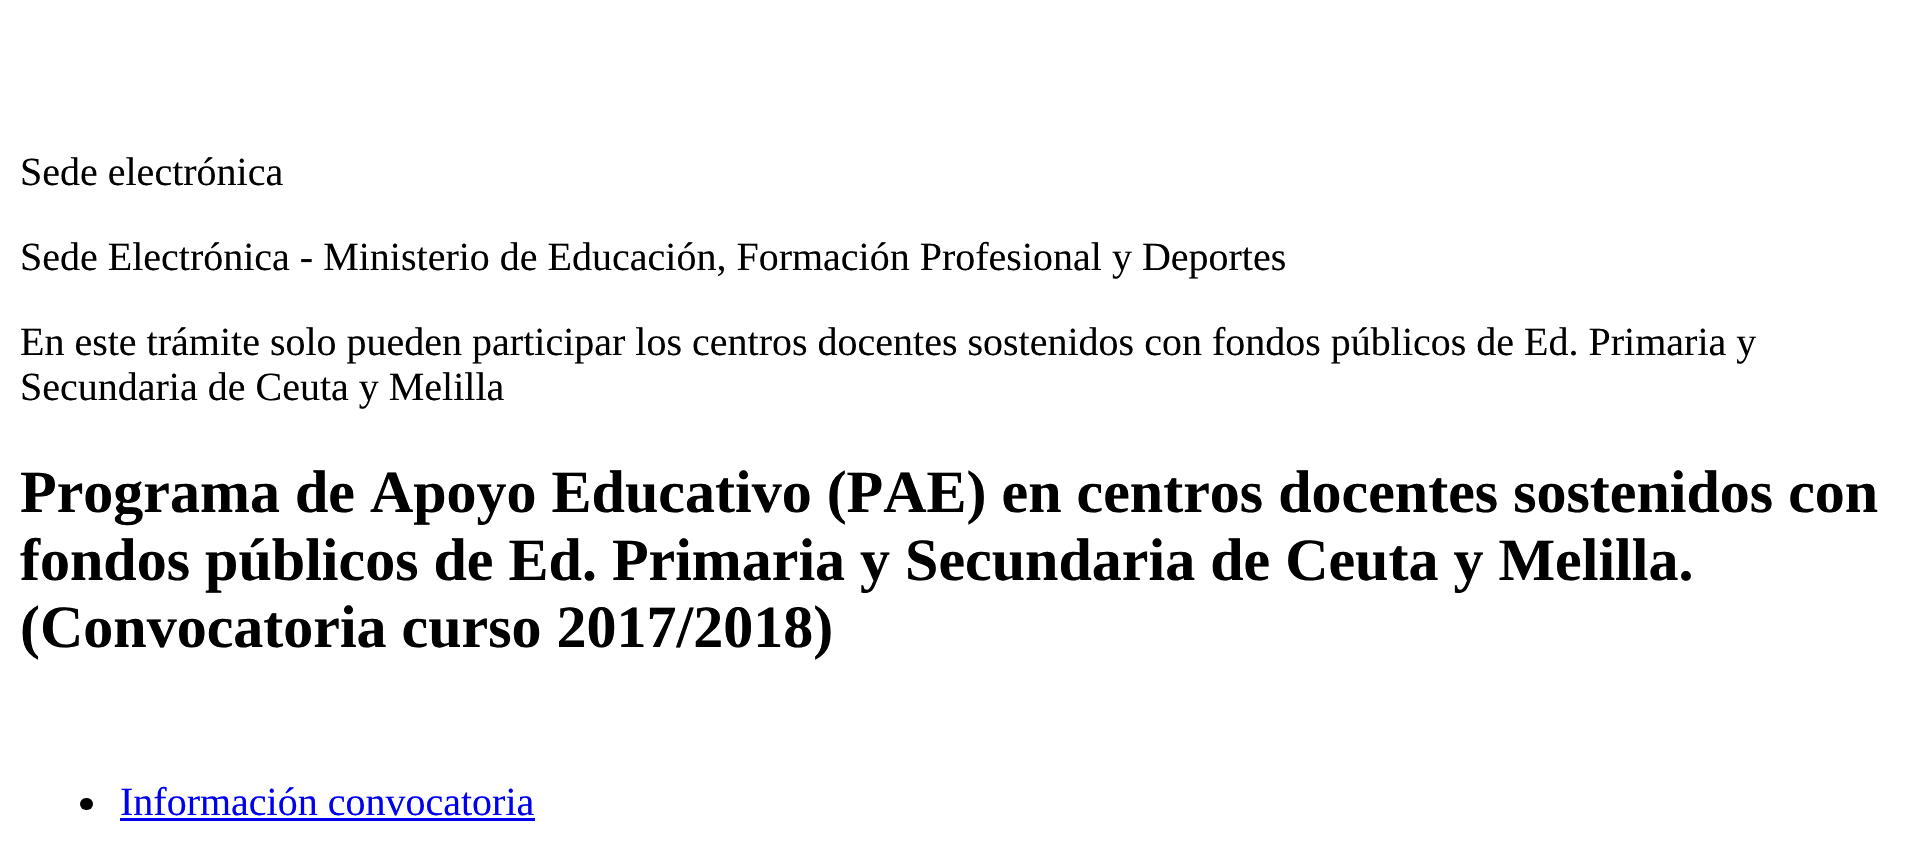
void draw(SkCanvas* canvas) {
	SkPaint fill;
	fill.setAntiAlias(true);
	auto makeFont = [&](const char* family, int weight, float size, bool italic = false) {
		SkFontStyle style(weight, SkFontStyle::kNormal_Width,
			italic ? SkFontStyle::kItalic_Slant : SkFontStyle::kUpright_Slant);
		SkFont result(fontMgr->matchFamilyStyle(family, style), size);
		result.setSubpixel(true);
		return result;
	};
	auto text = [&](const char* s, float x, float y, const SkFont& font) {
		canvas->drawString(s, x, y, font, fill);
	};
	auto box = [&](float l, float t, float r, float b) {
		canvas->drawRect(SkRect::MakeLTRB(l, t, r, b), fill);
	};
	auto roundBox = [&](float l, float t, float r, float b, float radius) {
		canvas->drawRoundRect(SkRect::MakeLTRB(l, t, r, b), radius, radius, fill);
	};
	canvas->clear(0xFFFFFFFF);
	fill.setColor(0xFF000000);
	roundBox(80, 798, 93, 810, 6);
	fill.setColor(0xFF0000EE);
	box(120, 818, 535, 821);
	auto font1 = makeFont("Liberation Serif", 400, 40);
	fill.setColor(0xFF000000);
	text("Sede electrónica", 20, 185, font1);
	text("Sede Electrónica - Ministerio de Educación, Formación Profesional y Deportes", 20, 270, font1);
	text("En este trámite solo pueden participar los centros docentes sostenidos con fondos públicos de Ed. Primaria y", 20, 355, font1);
	text("Secundaria de Ceuta y Melilla", 20, 400, font1);
	auto font2 = makeFont("Liberation Serif", 700, 60);
	text("Programa de Apoyo Educativo (PAE) en centros docentes sostenidos con", 20, 512, font2);
	text("fondos públicos de Ed. Primaria y Secundaria de Ceuta y Melilla.", 20, 580, font2);
	text("(Convocatoria curso 2017/2018)", 20, 647, font2);
	fill.setColor(0xFF0000EE);
	text("Información convocatoria", 120, 815, font1);
}
